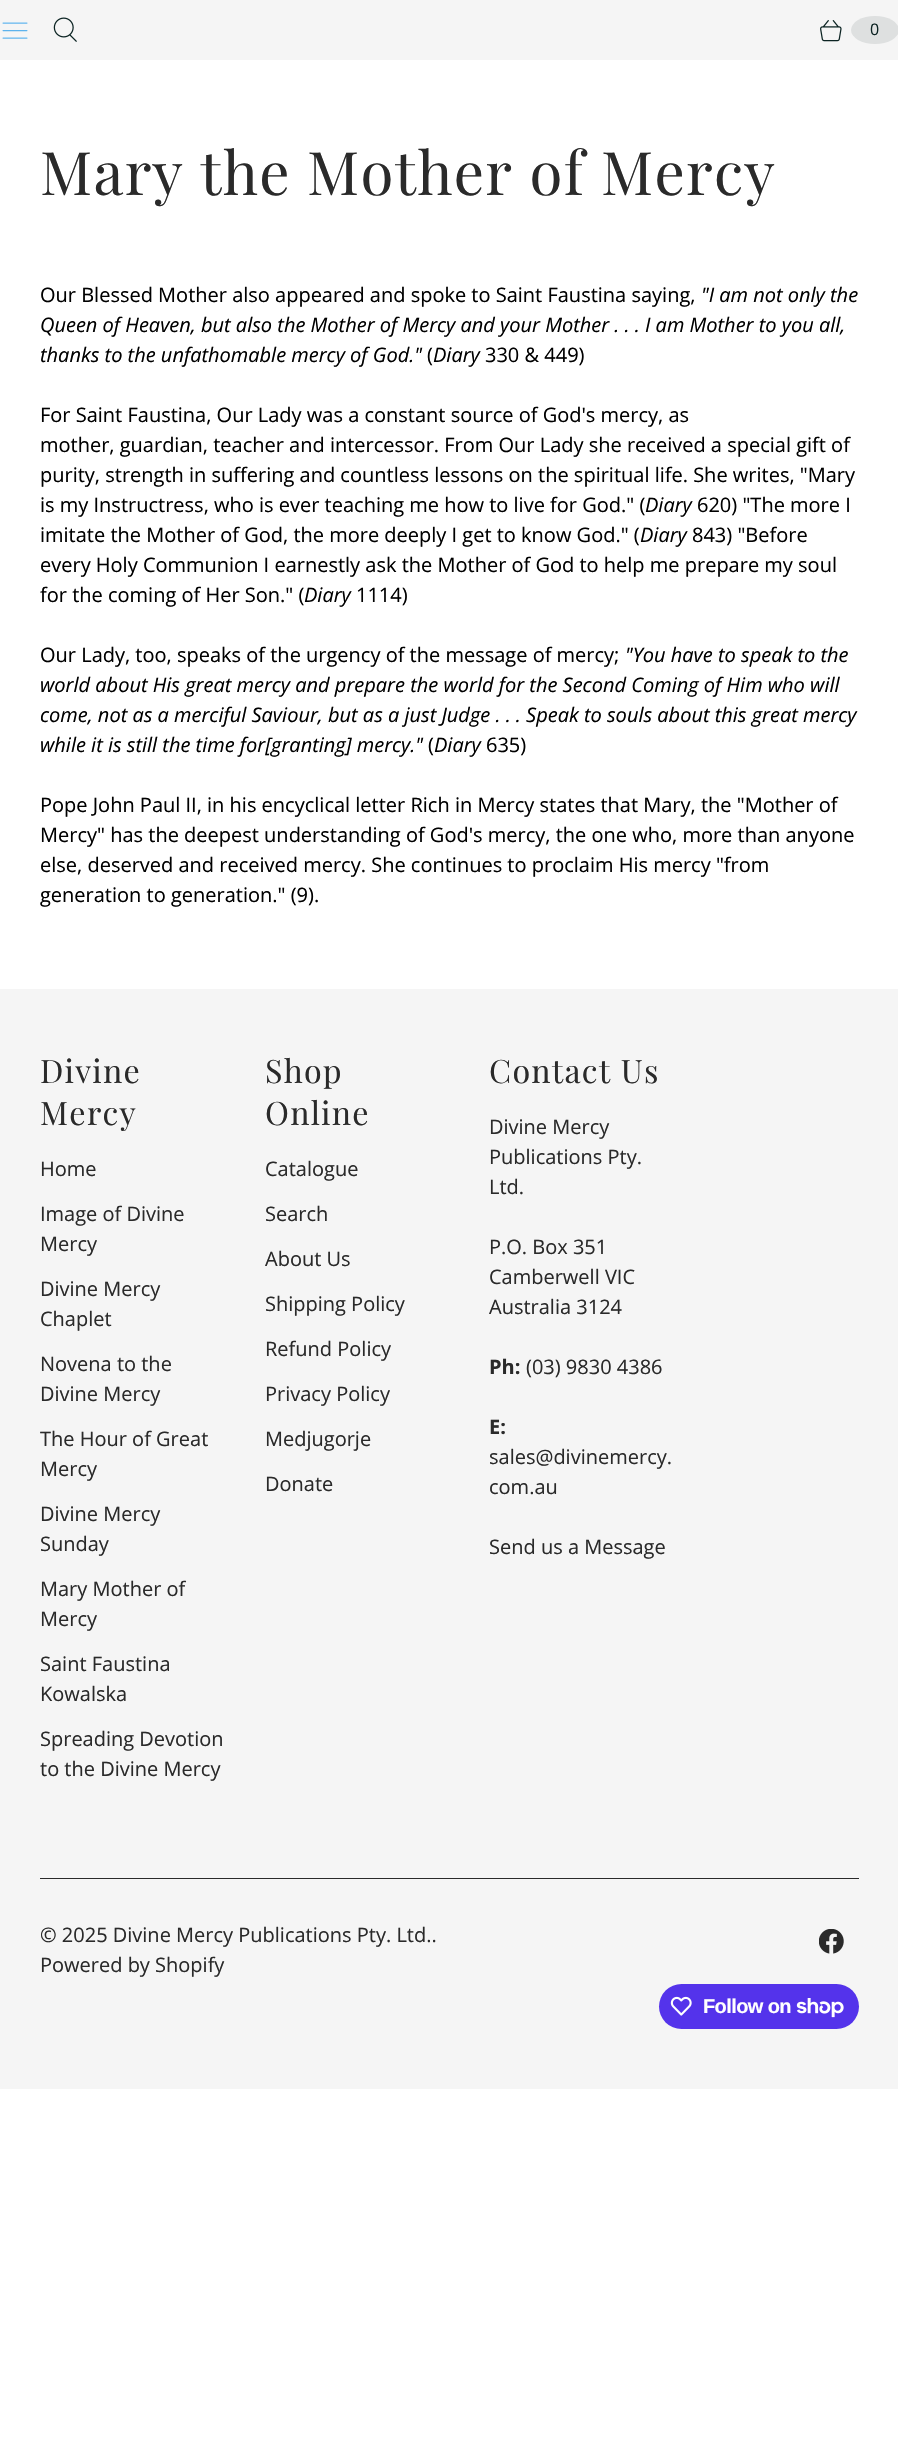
void draw(SkCanvas* canvas) {
	SkPaint fill;
	fill.setAntiAlias(true);
	auto makeFont = [&](const char* family, int weight, float size, bool italic = false) {
		SkFontStyle style(weight, SkFontStyle::kNormal_Width,
			italic ? SkFontStyle::kItalic_Slant : SkFontStyle::kUpright_Slant);
		SkFont result(fontMgr->matchFamilyStyle(family, style), size);
		result.setSubpixel(true);
		return result;
	};
	auto text = [&](const char* s, float x, float y, const SkFont& font) {
		canvas->drawString(s, x, y, font, fill);
	};
	auto spacedText = [&](const char* s, float x, float y, const SkFont& font, const SkPaint& ink, float letter, float word) {
		std::vector<SkGlyphID> glyphs(font.countText(s, strlen(s), SkTextEncoding::kUTF8));
		std::vector<float> xs(glyphs.size());
		font.textToGlyphs(s, strlen(s), SkTextEncoding::kUTF8, glyphs);
		font.getXPos(glyphs, xs, x);
		float extra = 0;
		for (size_t i = 0; i < glyphs.size(); i++) {
			xs[i] += extra;
			extra += letter + word * (glyphs[i] == font.unicharToGlyph(' '));
		}
		canvas->drawTextBlob(SkTextBlob::MakeFromPosHGlyphs(glyphs, xs, y, font), 0, 0, ink);
	};
	auto box = [&](float l, float t, float r, float b) {
		canvas->drawRect(SkRect::MakeLTRB(l, t, r, b), fill);
	};
	auto roundBox = [&](float l, float t, float r, float b, float radius) {
		canvas->drawRoundRect(SkRect::MakeLTRB(l, t, r, b), radius, radius, fill);
	};
	auto picture = [&](const char* path, float l, float t, float r, float b) {
		auto image = SkImages::DeferredFromEncodedData(SkData::MakeFromFileName(path));
		canvas->drawImageRect(image, SkRect::MakeLTRB(l, t, r, b), SkSamplingOptions());
	};
	canvas->clear(0xFFFFFFFF);
	fill.setColor(0xFFF5F5F5);
	box(0, 0, 898, 60);
	picture("image0.png", 2, 22, 28, 39);
	picture("image1.png", 53, 17, 77, 42);
	picture("image2.png", 820, 20, 842, 42);
	fill.setColor(0xFFDEE0E0);
	canvas->drawOval(SkRect::MakeLTRB(851, 16, 899, 44), fill);
	fill.setColor(0xFFF5F5F5);
	box(0, 989, 898, 2089);
	fill.setColor(0xFF2A2A2A);
	box(40, 1878, 859, 1879);
	picture("image3.png", 819, 1929, 844, 1954);
	fill.setColor(0xFF5433EB);
	roundBox(659, 1984, 859, 2029, 22.5f);
	picture("image4.png", 670, 1996, 692, 2016);
	picture("image5.png", 796, 1998, 844, 2018);
	auto font1 = makeFont("Open Sans", 400, 16);
	fill.setColor(0xFF0B2322);
	text("0", 870, 35, font1);
	auto font2 = makeFont("Playfair Display", 400, 60);
	fill.setColor(0xFF2A2A2A);
	spacedText("Mary the Mother of Mercy", 40, 195, font2, fill, 1.25f, 0);
	auto font3 = makeFont("Open Sans", 400, 20);
	fill.setColor(0xFF000000);
	text("Our Blessed Mother also appeared and spoke to Saint Faustina saying,", 40, 302, font3);
	auto font4 = makeFont("Open Sans", 400, 20, true);
	text("\"I am not only the", 701, 302, font4);
	text("Queen of Heaven, but also the Mother of Mercy and your Mother . . . I am Mother to you all,", 40, 332, font4);
	text("thanks to the unfathomable mercy of God.\"", 40, 362, font4);
	text("(", 427, 362, font3);
	text("Diary", 433, 362, font4);
	text("330 & 449)", 485, 362, font3);
	text("For Saint Faustina, Our Lady was a constant source of God's mercy, as", 40, 422, font3);
	text("mother, guardian, teacher and intercessor. From Our Lady she received a special gift of", 40, 452, font3);
	text("purity, strength in suffering and countless lessons on the spiritual life. She writes, \"Mary", 40, 482, font3);
	text("is my Instructress, who is ever teaching me how to live for God.\" (", 40, 512, font3);
	text("Diary", 645, 512, font4);
	text("620) \"The more I", 697, 512, font3);
	text("imitate the Mother of God, the more deeply I get to know God.\" (", 40, 542, font3);
	text("Diary", 640, 542, font4);
	text("843) \"Before", 692, 542, font3);
	text("every Holy Communion I earnestly ask the Mother of God to help me prepare my soul", 40, 572, font3);
	text("for the coming of Her Son.\" (", 40, 602, font3);
	text("Diary", 304, 602, font4);
	text("1114)", 356, 602, font3);
	text("Our Lady, too, speaks of the urgency of the message of mercy;", 40, 662, font3);
	text("\"You have to speak to the", 625, 662, font4);
	text("world about His great mercy and prepare the world for the Second Coming of Him who will", 40, 692, font4);
	text("come, not as a merciful Saviour, but as a just Judge . . . Speak to souls about this great mercy", 40, 722, font4);
	text("while it is still the time for[granting] mercy.\"", 40, 752, font4);
	text("(", 428, 752, font3);
	text("Diary", 434, 752, font4);
	text("635)", 486, 752, font3);
	text("Pope John Paul II, in his encyclical letter Rich in Mercy states that Mary, the \"Mother of", 40, 812, font3);
	text("Mercy\" has the deepest understanding of God's mercy, the one who, more than anyone", 40, 842, font3);
	text("else, deserved and received mercy. She continues to proclaim His mercy \"from", 40, 872, font3);
	text("generation to generation.\" (9).", 40, 902, font3);
	auto font5 = makeFont("Playfair Display", 400, 32.25f);
	fill.setColor(0xFF2A2A2A);
	spacedText("Divine", 40, 1083, font5, fill, 1.25f, 0);
	spacedText("Mercy", 40, 1125, font5, fill, 1.25f, 0);
	text("Home", 40, 1176, font3);
	text("Image of Divine", 40, 1221, font3);
	text("Mercy", 40, 1251, font3);
	text("Divine Mercy", 40, 1296, font3);
	text("Chaplet", 40, 1326, font3);
	text("Novena to the", 40, 1371, font3);
	text("Divine Mercy", 40, 1401, font3);
	text("The Hour of Great", 40, 1446, font3);
	text("Mercy", 40, 1476, font3);
	text("Divine Mercy", 40, 1521, font3);
	text("Sunday", 40, 1551, font3);
	text("Mary Mother of", 40, 1596, font3);
	text("Mercy", 40, 1626, font3);
	text("Saint Faustina", 40, 1671, font3);
	text("Kowalska", 40, 1701, font3);
	text("Spreading Devotion", 40, 1746, font3);
	text("to the Divine Mercy", 40, 1776, font3);
	spacedText("Shop", 265, 1083, font5, fill, 1.25f, 0);
	spacedText("Online", 265, 1125, font5, fill, 1.25f, 0);
	text("Catalogue", 265, 1176, font3);
	text("Search", 265, 1221, font3);
	text("About Us", 265, 1266, font3);
	text("Shipping Policy", 265, 1311, font3);
	text("Refund Policy", 265, 1356, font3);
	text("Privacy Policy", 265, 1401, font3);
	text("Medjugorje", 265, 1446, font3);
	text("Donate", 265, 1491, font3);
	spacedText("Contact Us", 489, 1083, font5, fill, 1.25f, 0);
	text("Divine Mercy", 489, 1134, font3);
	text("Publications Pty.", 489, 1164, font3);
	text("Ltd.", 489, 1194, font3);
	text("P.O. Box 351", 489, 1254, font3);
	text("Camberwell VIC", 489, 1284, font3);
	text("Australia 3124", 489, 1314, font3);
	auto font6 = makeFont("Open Sans", 700, 20);
	text("Ph:", 489, 1374, font6);
	text("(03) 9830 4386", 526, 1374, font3);
	text("E:", 489, 1434, font6);
	text("sales@divinemercy.", 489, 1464, font3);
	text("com.au", 489, 1494, font3);
	text("Send us a Message", 489, 1554, font3);
	text("© 2025 Divine Mercy Publications Pty. Ltd..", 40, 1942, font3);
	text("Powered by Shopify", 40, 1972, font3);
	auto font7 = makeFont("Liberation Sans", 700, 20);
	fill.setColor(0xFFFFFFFF);
	spacedText("Follow on", 703, 2013, font7, fill, -0.6f, 0);
}
